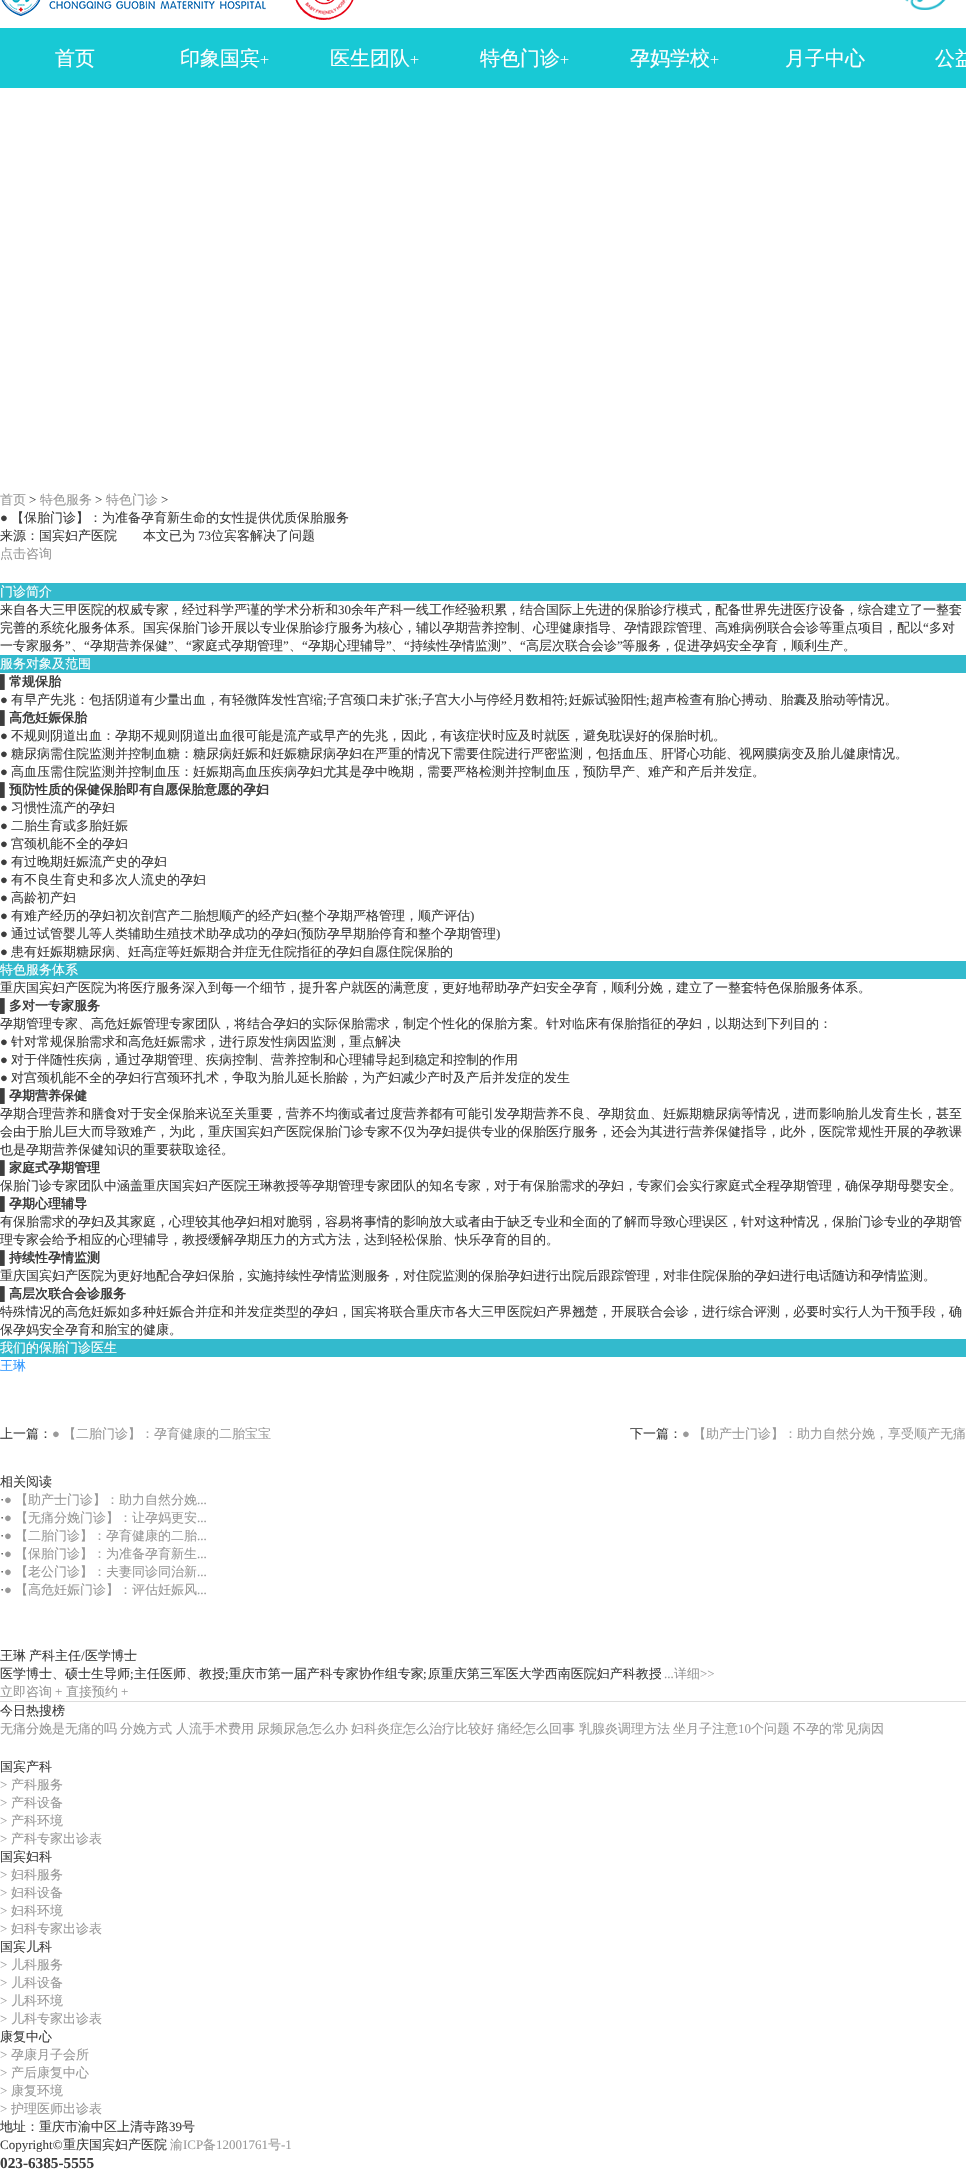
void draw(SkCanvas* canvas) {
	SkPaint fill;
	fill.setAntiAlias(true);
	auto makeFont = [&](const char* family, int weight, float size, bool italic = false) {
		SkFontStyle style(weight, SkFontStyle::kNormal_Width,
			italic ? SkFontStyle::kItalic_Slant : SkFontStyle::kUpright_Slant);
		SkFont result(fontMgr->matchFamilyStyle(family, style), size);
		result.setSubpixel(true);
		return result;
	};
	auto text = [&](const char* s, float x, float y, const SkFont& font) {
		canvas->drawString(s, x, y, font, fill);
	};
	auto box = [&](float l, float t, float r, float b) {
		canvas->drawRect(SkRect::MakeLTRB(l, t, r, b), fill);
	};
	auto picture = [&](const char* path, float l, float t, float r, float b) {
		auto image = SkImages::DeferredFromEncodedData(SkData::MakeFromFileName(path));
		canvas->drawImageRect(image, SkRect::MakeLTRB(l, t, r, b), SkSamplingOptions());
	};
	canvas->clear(0xFFFFFFFF);
	picture("image0.png", 1, 0, 354, 20);
	picture("image1.png", 905, 0, 946, 10);
	fill.setColor(0xFF18C9D5);
	box(0, 28, 966, 88);
	fill.setColor(0xFF33BACD);
	box(0, 583, 966, 601);
	box(0, 655, 966, 673);
	box(0, 961, 966, 979);
	box(0, 1339, 966, 1357);
	fill.setColor(0xFFDDDDDD);
	box(0, 1701, 966, 1702);
	auto font1 = makeFont("WenQuanYi Zen Hei", 500, 20);
	fill.setColor(0xFFFFFFFF);
	text("首页", 55, 65, font1);
	text("印象国宾", 180, 65, font1);
	auto font2 = makeFont("Liberation Serif", 400, 16);
	text("+", 260, 65, font2);
	text("医生团队", 330, 65, font1);
	text("+", 410, 65, font2);
	text("特色门诊", 480, 65, font1);
	text("+", 560, 65, font2);
	text("孕妈学校", 630, 65, font1);
	text("+", 710, 65, font2);
	text("月子中心", 785, 65, font1);
	text("公益", 935, 65, font1);
	auto font3 = makeFont("WenQuanYi Zen Hei", 500, 13);
	fill.setColor(0xFF999999);
	text("首页", 0, 504, font3);
	auto font4 = makeFont("Liberation Serif", 400, 13);
	fill.setColor(0xFF3D3D3D);
	text(">", 29, 504, font4);
	fill.setColor(0xFF999999);
	text("特色服务", 40, 504, font3);
	fill.setColor(0xFF3D3D3D);
	text(">", 95, 504, font4);
	fill.setColor(0xFF999999);
	text("特色门诊", 106, 504, font3);
	fill.setColor(0xFF3D3D3D);
	text(">", 161, 504, font4);
	text("●", 0, 522, font4);
	text("【保胎门诊】：为准备孕育新生命的女性提供优质保胎服务", 11, 522, font3);
	text("来源：国宾妇产医院", 0, 540, font3);
	text("本文已为", 143, 540, font3);
	text("73", 198, 540, font4);
	text("位宾客解决了问题", 211, 540, font3);
	fill.setColor(0xFF999999);
	text("点击咨询", 0, 558, font3);
	fill.setColor(0xFFFFFFFF);
	text("门诊简介", 0, 596, font3);
	fill.setColor(0xFF3D3D3D);
	text("来自各大三甲医院的权威专家，经过科学严谨的学术分析和", 0, 614, font3);
	text("30", 338, 614, font4);
	text("余年产科一线工作经验积累，结合国际上先进的保胎诊疗模式，配备世界先进医疗设备，综合建立了一整套", 351, 614, font3);
	text("完善的系统化服务体系。国宾保胎门诊开展以专业保胎诊疗服务为核心，辅以孕期营养控制、心理健康指导、孕情跟踪管理、高难病例联合会诊等重点项目，配以", 0, 632, font3);
	text("“", 923, 632, font4);
	text("多对", 929, 632, font3);
	text("一专家服务", 0, 650, font3);
	text("”", 65, 650, font4);
	text("“", 84, 650, font4);
	text("孕期营养保健", 90, 650, font3);
	text("”", 168, 650, font4);
	text("“", 186, 650, font4);
	text("家庭式孕期管理", 192, 650, font3);
	text("”", 283, 650, font4);
	text("“", 302, 650, font4);
	text("孕期心理辅导", 308, 650, font3);
	text("”", 386, 650, font4);
	text("“", 404, 650, font4);
	text("持续性孕情监测", 410, 650, font3);
	text("”", 501, 650, font4);
	text("“", 520, 650, font4);
	text("高层次联合会诊", 526, 650, font3);
	text("”", 617, 650, font4);
	text("等服务，促进孕妈安全孕育，顺利生产。", 622, 650, font3);
	text("、", 71, 650, font3);
	text("、", 173, 650, font3);
	text("、", 289, 650, font3);
	text("、", 391, 650, font3);
	text("、", 507, 650, font3);
	fill.setColor(0xFFFFFFFF);
	text("服务对象及范围", 0, 668, font3);
	auto font5 = makeFont("Liberation Serif", 700, 13);
	fill.setColor(0xFF3D3D3D);
	text("▌", 0, 686, font5);
	auto font6 = makeFont("WenQuanYi Zen Hei", 700, 13);
	text("常规保胎", 9, 686, font6);
	text("●", 0, 704, font4);
	text("有早产先兆：包括阴道有少量出血，有轻微阵发性宫缩 子宫颈口未扩张 子宫大小与停经月数相符 妊娠试验阳性 超声检查有胎心搏动、胎囊及胎动等情况。", 11, 704, font3);
	text(";", 323, 704, font4);
	text(";", 418, 704, font4);
	text(";", 564, 704, font4);
	text(";", 646, 704, font4);
	text("▌", 0, 722, font5);
	text("高危妊娠保胎", 9, 722, font6);
	text("●", 0, 740, font4);
	text("不规则阴道出血：孕期不规则阴道出血很可能是流产或早产的先兆，因此，有该症状时应及时就医，避免耽误好的保胎时机。", 11, 740, font3);
	text("●", 0, 758, font4);
	text("糖尿病需住院监测并控制血糖：糖尿病妊娠和妊娠糖尿病孕妇在严重的情况下需要住院进行严密监测，包括血压、肝肾心功能、视网膜病变及胎儿健康情况。", 11, 758, font3);
	text("●", 0, 776, font4);
	text("高血压需住院监测并控制血压：妊娠期高血压疾病孕妇尤其是孕中晚期，需要严格检测并控制血压，预防早产、难产和产后并发症。", 11, 776, font3);
	text("▌", 0, 794, font5);
	text("预防性质的保健保胎即有自愿保胎意愿的孕妇", 9, 794, font6);
	text("●", 0, 812, font4);
	text("习惯性流产的孕妇", 11, 812, font3);
	text("●", 0, 830, font4);
	text("二胎生育或多胎妊娠", 11, 830, font3);
	text("●", 0, 848, font4);
	text("宫颈机能不全的孕妇", 11, 848, font3);
	text("●", 0, 866, font4);
	text("有过晚期妊娠流产史的孕妇", 11, 866, font3);
	text("●", 0, 884, font4);
	text("有不良生育史和多次人流史的孕妇", 11, 884, font3);
	text("●", 0, 902, font4);
	text("高龄初产妇", 11, 902, font3);
	text("●", 0, 920, font4);
	text("有难产经历的孕妇初次剖宫产二胎想顺产的经产妇", 11, 920, font3);
	text("(", 297, 920, font4);
	text("整个孕期严格管理，顺产评估", 301, 920, font3);
	text(")", 470, 920, font4);
	text("●", 0, 938, font4);
	text("通过试管婴儿等人类辅助生殖技术助孕成功的孕妇", 11, 938, font3);
	text("(", 297, 938, font4);
	text("预防孕早期胎停育和整个孕期管理", 301, 938, font3);
	text(")", 496, 938, font4);
	text("●", 0, 956, font4);
	text("患有妊娠期糖尿病、妊高症等妊娠期合并症无住院指征的孕妇自愿住院保胎的", 11, 956, font3);
	fill.setColor(0xFFFFFFFF);
	text("特色服务体系", 0, 974, font3);
	fill.setColor(0xFF3D3D3D);
	text("重庆国宾妇产医院为将医疗服务深入到每一个细节，提升客户就医的满意度，更好地帮助孕产妇安全孕育，顺利分娩，建立了一整套特色保胎服务体系。", 0, 992, font3);
	text("▌", 0, 1010, font5);
	text("多对一专家服务", 9, 1010, font6);
	text("孕期管理专家、高危妊娠管理专家团队，将结合孕妇的实际保胎需求，制定个性化的保胎方案。针对临床有保胎指征的孕妇，以期达到下列目的：", 0, 1028, font3);
	text("●", 0, 1046, font4);
	text("针对常规保胎需求和高危妊娠需求，进行原发性病因监测，重点解决", 11, 1046, font3);
	text("●", 0, 1064, font4);
	text("对于伴随性疾病，通过孕期管理、疾病控制、营养控制和心理辅导起到稳定和控制的作用", 11, 1064, font3);
	text("●", 0, 1082, font4);
	text("对宫颈机能不全的孕妇行宫颈环扎术，争取为胎儿延长胎龄，为产妇减少产时及产后并发症的发生", 11, 1082, font3);
	text("▌", 0, 1100, font5);
	text("孕期营养保健", 9, 1100, font6);
	text("孕期合理营养和膳食对于安全保胎来说至关重要，营养不均衡或者过度营养都有可能引发孕期营养不良、孕期贫血、妊娠期糖尿病等情况，进而影响胎儿发育生长，甚至", 0, 1118, font3);
	text("会由于胎儿巨大而导致难产，为此，重庆国宾妇产医院保胎门诊专家不仅为孕妇提供专业的保胎医疗服务，还会为其进行营养保健指导，此外，医院常规性开展的孕教课", 0, 1136, font3);
	text("也是孕期营养保健知识的重要获取途径。", 0, 1154, font3);
	text("▌", 0, 1172, font5);
	text("家庭式孕期管理", 9, 1172, font6);
	text("保胎门诊专家团队中涵盖重庆国宾妇产医院王琳教授等孕期管理专家团队的知名专家，对于有保胎需求的孕妇，专家们会实行家庭式全程孕期管理，确保孕期母婴安全。", 0, 1190, font3);
	text("▌", 0, 1208, font5);
	text("孕期心理辅导", 9, 1208, font6);
	text("有保胎需求的孕妇及其家庭，心理较其他孕妇相对脆弱，容易将事情的影响放大或者由于缺乏专业和全面的了解而导致心理误区，针对这种情况，保胎门诊专业的孕期管", 0, 1226, font3);
	text("理专家会给予相应的心理辅导，教授缓解孕期压力的方式方法，达到轻松保胎、快乐孕育的目的。", 0, 1244, font3);
	text("▌", 0, 1262, font5);
	text("持续性孕情监测", 9, 1262, font6);
	text("重庆国宾妇产医院为更好地配合孕妇保胎，实施持续性孕情监测服务，对住院监测的保胎孕妇进行出院后跟踪管理，对非住院保胎的孕妇进行电话随访和孕情监测。", 0, 1280, font3);
	text("▌", 0, 1298, font5);
	text("高层次联合会诊服务", 9, 1298, font6);
	text("特殊情况的高危妊娠如多种妊娠合并症和并发症类型的孕妇，国宾将联合重庆市各大三甲医院妇产界翘楚，开展联合会诊，进行综合评测，必要时实行人为干预手段，确", 0, 1316, font3);
	text("保孕妈安全孕育和胎宝的健康。", 0, 1334, font3);
	fill.setColor(0xFFFFFFFF);
	text("我们的保胎门诊医生", 0, 1352, font3);
	fill.setColor(0xFF3399FF);
	text("王琳", 0, 1370, font3);
	fill.setColor(0xFF3D3D3D);
	text("上一篇：", 0, 1438, font3);
	fill.setColor(0xFF999999);
	text("●", 52, 1438, font4);
	text("【二胎门诊】：孕育健康的二胎宝宝", 63, 1438, font3);
	fill.setColor(0xFF3D3D3D);
	text("下一篇：", 630, 1438, font3);
	fill.setColor(0xFF999999);
	text("●", 682, 1438, font4);
	text("【助产士门诊】：助力自然分娩，享受顺产无痛", 693, 1438, font3);
	fill.setColor(0xFF3D3D3D);
	text("相关阅读", 0, 1486, font3);
	text("·", 0, 1504, font4);
	fill.setColor(0xFF999999);
	text("●", 4, 1504, font4);
	text("【助产士门诊】：助力自然分娩", 15, 1504, font3);
	text("...", 197, 1504, font4);
	fill.setColor(0xFF3D3D3D);
	text("·", 0, 1522, font4);
	fill.setColor(0xFF999999);
	text("●", 4, 1522, font4);
	text("【无痛分娩门诊】：让孕妈更安", 15, 1522, font3);
	text("...", 197, 1522, font4);
	fill.setColor(0xFF3D3D3D);
	text("·", 0, 1540, font4);
	fill.setColor(0xFF999999);
	text("●", 4, 1540, font4);
	text("【二胎门诊】：孕育健康的二胎", 15, 1540, font3);
	text("...", 197, 1540, font4);
	fill.setColor(0xFF3D3D3D);
	text("·", 0, 1558, font4);
	fill.setColor(0xFF999999);
	text("●", 4, 1558, font4);
	text("【保胎门诊】：为准备孕育新生", 15, 1558, font3);
	text("...", 197, 1558, font4);
	fill.setColor(0xFF3D3D3D);
	text("·", 0, 1576, font4);
	fill.setColor(0xFF999999);
	text("●", 4, 1576, font4);
	text("【老公门诊】：夫妻同诊同治新", 15, 1576, font3);
	text("...", 197, 1576, font4);
	fill.setColor(0xFF3D3D3D);
	text("·", 0, 1594, font4);
	fill.setColor(0xFF999999);
	text("●", 4, 1594, font4);
	text("【高危妊娠门诊】：评估妊娠风", 15, 1594, font3);
	text("...", 197, 1594, font4);
	fill.setColor(0xFF3D3D3D);
	text("王琳", 0, 1660, font3);
	text("产科主任 医学博士", 29, 1660, font3);
	text("/", 81, 1660, font4);
	text("医学博士、硕士生导师 主任医师、教授 重庆市第一届产科专家协作组专家 原重庆第三军医大学西南医院妇产科教授", 0, 1678, font3);
	fill.setColor(0xFF999999);
	text("详细", 674, 1678, font3);
	text(">>", 700, 1678, font4);
	fill.setColor(0xFF3D3D3D);
	text(";", 130, 1678, font4);
	text(";", 225, 1678, font4);
	text(";", 423, 1678, font4);
	fill.setColor(0xFF999999);
	text("...", 664, 1678, font4);
	text("立即咨询", 0, 1696, font3);
	text("+", 55, 1696, font4);
	text("直接预约", 66, 1696, font3);
	text("+", 121, 1696, font4);
	fill.setColor(0xFF3D3D3D);
	text("今日热搜榜", 0, 1715, font3);
	fill.setColor(0xFF999999);
	text("无痛分娩是无痛的吗", 0, 1733, font3);
	text("分娩方式", 120, 1733, font3);
	text("人流手术费用", 176, 1733, font3);
	text("尿频尿急怎么办", 257, 1733, font3);
	text("妇科炎症怎么治疗比较好", 351, 1733, font3);
	text("痛经怎么回事", 497, 1733, font3);
	text("乳腺炎调理方法", 579, 1733, font3);
	text("坐月子注意", 673, 1733, font3);
	text("10", 738, 1733, font4);
	text("个问题", 751, 1733, font3);
	text("不孕的常见病因", 793, 1733, font3);
	fill.setColor(0xFF3D3D3D);
	text("国宾产科", 0, 1771, font3);
	fill.setColor(0xFF999999);
	text(">", 0, 1789, font4);
	text("产科服务", 11, 1789, font3);
	text(">", 0, 1807, font4);
	text("产科设备", 11, 1807, font3);
	text(">", 0, 1825, font4);
	text("产科环境", 11, 1825, font3);
	text(">", 0, 1843, font4);
	text("产科专家出诊表", 11, 1843, font3);
	fill.setColor(0xFF3D3D3D);
	text("国宾妇科", 0, 1861, font3);
	fill.setColor(0xFF999999);
	text(">", 0, 1879, font4);
	text("妇科服务", 11, 1879, font3);
	text(">", 0, 1897, font4);
	text("妇科设备", 11, 1897, font3);
	text(">", 0, 1915, font4);
	text("妇科环境", 11, 1915, font3);
	text(">", 0, 1933, font4);
	text("妇科专家出诊表", 11, 1933, font3);
	fill.setColor(0xFF3D3D3D);
	text("国宾儿科", 0, 1951, font3);
	fill.setColor(0xFF999999);
	text(">", 0, 1969, font4);
	text("儿科服务", 11, 1969, font3);
	text(">", 0, 1987, font4);
	text("儿科设备", 11, 1987, font3);
	text(">", 0, 2005, font4);
	text("儿科环境", 11, 2005, font3);
	text(">", 0, 2023, font4);
	text("儿科专家出诊表", 11, 2023, font3);
	fill.setColor(0xFF3D3D3D);
	text("康复中心", 0, 2041, font3);
	fill.setColor(0xFF999999);
	text(">", 0, 2059, font4);
	text("孕康月子会所", 11, 2059, font3);
	text(">", 0, 2077, font4);
	text("产后康复中心", 11, 2077, font3);
	text(">", 0, 2095, font4);
	text("康复环境", 11, 2095, font3);
	text(">", 0, 2113, font4);
	text("护理医师出诊表", 11, 2113, font3);
	fill.setColor(0xFF3D3D3D);
	text("地址：重庆市渝中区上清寺路", 0, 2131, font3);
	text("39", 169, 2131, font4);
	text("号", 182, 2131, font3);
	text("Copyright©", 0, 2149, font4);
	text("重庆国宾妇产医院", 63, 2149, font3);
	fill.setColor(0xFF999999);
	text("渝", 170, 2149, font3);
	text("ICP", 183, 2149, font4);
	text("备", 203, 2149, font3);
	text("12001761", 216, 2149, font4);
	text("号", 268, 2149, font3);
	text("-1", 281, 2149, font4);
	auto font7 = makeFont("Liberation Serif", 700, 15.25f);
	fill.setColor(0xFF3D3D3D);
	text("023-6385-5555", 0, 2168, font7);
}
